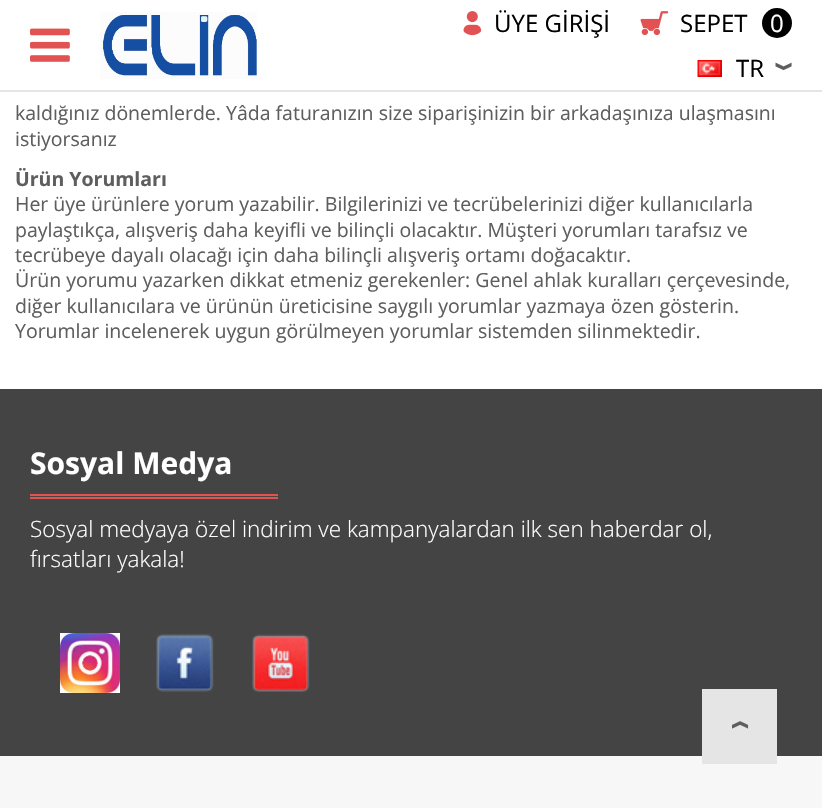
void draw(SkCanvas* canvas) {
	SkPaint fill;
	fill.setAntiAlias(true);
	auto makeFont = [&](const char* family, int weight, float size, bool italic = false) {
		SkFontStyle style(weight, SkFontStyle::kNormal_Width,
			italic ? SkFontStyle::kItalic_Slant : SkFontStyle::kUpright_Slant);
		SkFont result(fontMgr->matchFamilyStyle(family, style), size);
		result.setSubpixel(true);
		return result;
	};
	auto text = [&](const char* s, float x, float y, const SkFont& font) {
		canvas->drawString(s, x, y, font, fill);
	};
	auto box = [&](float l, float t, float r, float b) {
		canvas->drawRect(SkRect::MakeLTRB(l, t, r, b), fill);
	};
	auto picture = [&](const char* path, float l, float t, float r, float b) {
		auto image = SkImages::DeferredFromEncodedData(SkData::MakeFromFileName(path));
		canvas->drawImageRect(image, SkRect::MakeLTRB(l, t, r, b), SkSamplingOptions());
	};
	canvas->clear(0xFFFFFFFF);
	fill.setColor(0xFFE5E5E5);
	box(0, 90, 822, 92);
	picture("image0.png", 30, 28, 70, 62);
	picture("image1.png", 100, 12, 257, 79);
	picture("image2.png", 463, 11, 482, 36);
	picture("image3.png", 640, 11, 669, 36);
	fill.setColor(0xFF000000);
	canvas->drawCircle(777, 23, 15, fill);
	picture("image4.png", 697, 60, 722, 77);
	picture("image5.png", 775, 62, 792, 71);
	fill.setColor(0xFF444444);
	box(0, 389, 822, 756);
	fill.setColor(0xFFF7F7F7);
	box(0, 756, 822, 808);
	fill.setColor(0xFFE5E5E5);
	box(702, 689, 777, 764);
	picture("image6.png", 732, 721, 749, 729);
	fill.setColor(0xFFE35252);
	box(30, 494, 278, 496);
	box(30, 497, 278, 499);
	picture("image7.png", 60, 633, 120, 693);
	picture("image8.png", 156, 634, 214, 692);
	picture("image9.png", 252, 634, 310, 692);
	auto font1 = makeFont("Open Sans", 400, 24);
	fill.setColor(0xFF000000);
	text("ÜYE GİRİŞİ", 494, 32, font1);
	text("SEPET", 680, 32, font1);
	fill.setColor(0xFFFFFFFF);
	text("0", 770, 32, font1);
	fill.setColor(0xFF000000);
	text("TR", 736, 77, font1);
	auto font2 = makeFont("Open Sans", 400, 19.5f);
	fill.setColor(0xFF5E5E5E);
	text("kaldığınız dönemlerde. Yâda faturanızın size siparişinizin bir arkadaşınıza ulaşmasını", 15, 120, font2);
	text("istiyorsanız", 15, 146, font2);
	auto font3 = makeFont("Open Sans", 700, 19.5f);
	text("Ürün Yorumları", 15, 186, font3);
	text("Her üye ürünlere yorum yazabilir. Bilgilerinizi ve tecrübelerinizi diğer kullanıcılarla", 15, 211, font2);
	text("paylaştıkça, alışveriş daha keyifli ve bilinçli olacaktır. Müşteri yorumları tarafsız ve", 15, 237, font2);
	text("tecrübeye dayalı olacağı için daha bilinçli alışveriş ortamı doğacaktır.", 15, 262, font2);
	text("Ürün yorumu yazarken dikkat etmeniz gerekenler: Genel ahlak kuralları çerçevesinde,", 15, 287, font2);
	text("diğer kullanıcılara ve ürünün üreticisine saygılı yorumlar yazmaya özen gösterin.", 15, 313, font2);
	text("Yorumlar incelenerek uygun görülmeyen yorumlar sistemden silinmektedir.", 15, 338, font2);
	auto font4 = makeFont("Open Sans", 700, 30);
	fill.setColor(0xFFFFFFFF);
	text("Sosyal Medya", 30, 474, font4);
	auto font5 = makeFont("Open Sans", 300, 22.5f);
	text("Sosyal medyaya özel indirim ve kampanyalardan ilk sen haberdar ol,", 30, 537, font5);
	text("fırsatları yakala!", 30, 567, font5);
}
